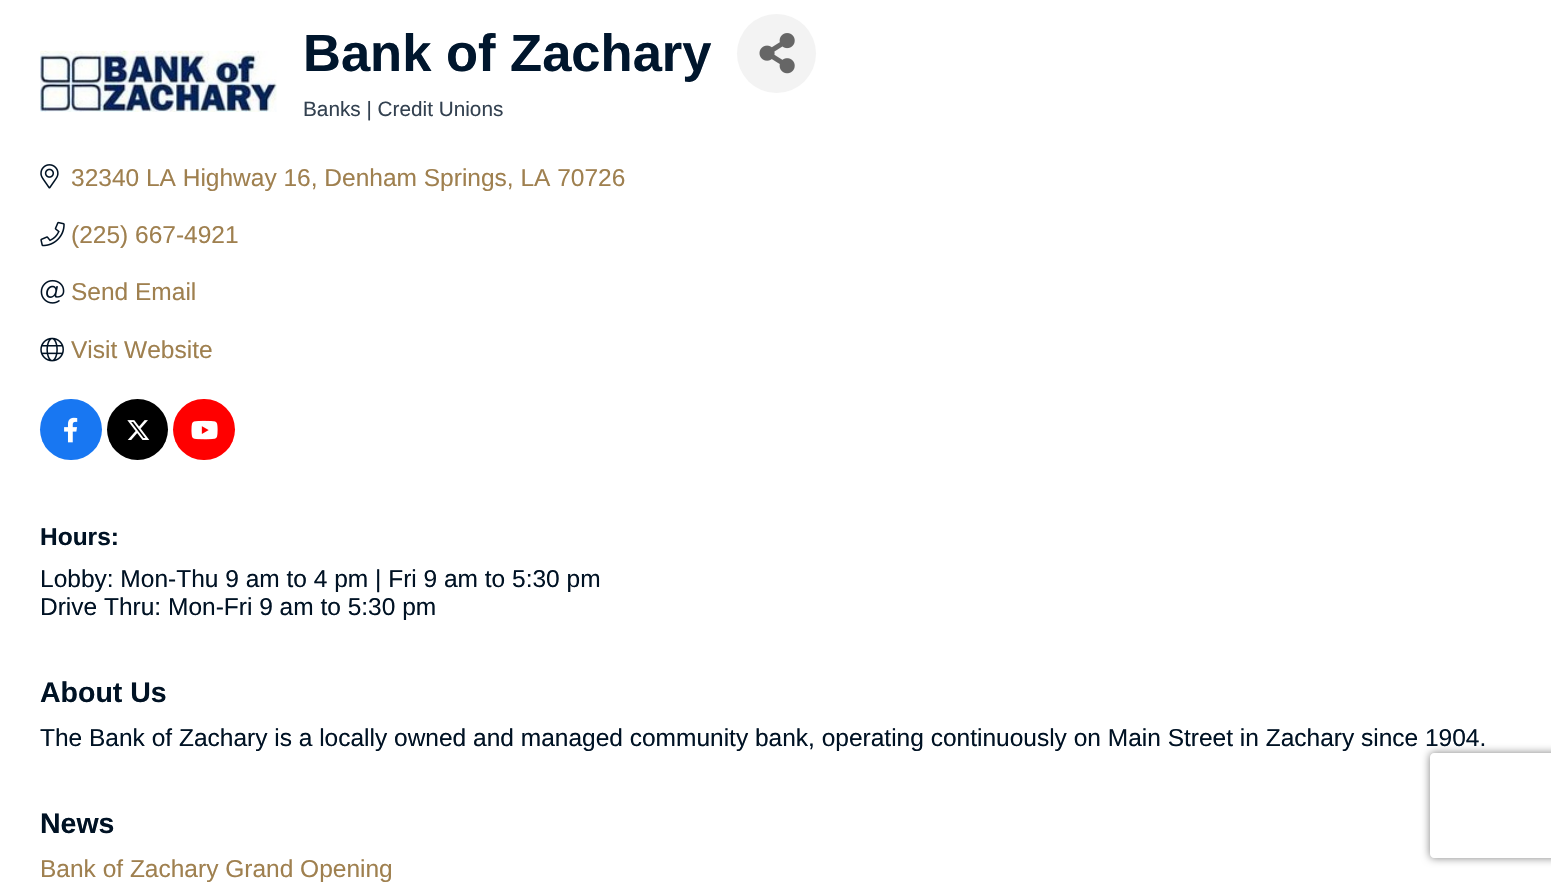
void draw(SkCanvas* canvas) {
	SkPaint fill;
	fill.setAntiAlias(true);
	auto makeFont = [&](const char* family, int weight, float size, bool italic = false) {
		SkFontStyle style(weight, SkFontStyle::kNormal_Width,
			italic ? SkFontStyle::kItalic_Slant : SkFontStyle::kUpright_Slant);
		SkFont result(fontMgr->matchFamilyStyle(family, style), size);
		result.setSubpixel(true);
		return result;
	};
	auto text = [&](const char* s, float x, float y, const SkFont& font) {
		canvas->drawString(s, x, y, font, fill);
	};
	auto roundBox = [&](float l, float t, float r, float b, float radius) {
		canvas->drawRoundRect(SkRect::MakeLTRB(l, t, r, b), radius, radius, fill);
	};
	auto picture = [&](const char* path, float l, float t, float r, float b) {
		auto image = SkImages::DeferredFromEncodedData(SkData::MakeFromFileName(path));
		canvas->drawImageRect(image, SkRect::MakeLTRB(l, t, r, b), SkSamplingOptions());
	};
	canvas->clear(0xFFFFFFFF);
	picture("image0.png", 40, 50, 277, 112);
	fill.setColor(0xFFF3F3F3);
	canvas->drawCircle(776.5f, 53.5f, 39.5f, fill);
	picture("image1.png", 759, 33, 795, 74);
	picture("image2.png", 40, 164, 59, 189);
	picture("image3.png", 40, 221, 65, 247);
	picture("image4.png", 40, 279, 65, 304);
	picture("image5.png", 40, 337, 64, 362);
	fill.setColor(0xFF1877F2);
	roundBox(40, 399, 102, 460, 30.5f);
	picture("image6.png", 64, 417, 78, 443);
	fill.setColor(0xFF000000);
	canvas->drawCircle(137.5f, 429.5f, 30.5f, fill);
	picture("image7.png", 127, 420, 150, 440);
	fill.setColor(0xFFFF0000);
	roundBox(173, 399, 235, 460, 30.5f);
	picture("image8.png", 191, 420, 218, 440);
	canvas->save();
	canvas->clipPath(SkPathBuilder(SkPathFillType::kEvenOdd).moveTo(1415, 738).lineTo(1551, 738).lineTo(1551, 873).lineTo(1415, 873).close().moveTo(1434, 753).lineTo(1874, 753).cubicTo(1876, 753, 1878, 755, 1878, 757).lineTo(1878, 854).cubicTo(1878, 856, 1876, 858, 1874, 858).lineTo(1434, 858).cubicTo(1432, 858, 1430, 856, 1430, 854).lineTo(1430, 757).cubicTo(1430, 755, 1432, 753, 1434, 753).close().detach(), true);
	fill.setColor(0xFF808080);
	fill.setMaskFilter(SkMaskFilter::MakeBlur(kNormal_SkBlurStyle, 4.5f));
	canvas->drawRoundRect(SkRect::MakeLTRB(1430, 753, 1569, 858), 4, 4, fill);
	fill.setMaskFilter(nullptr);
	canvas->restore();
	auto font1 = makeFont("Liberation Sans", 700, 52.5f);
	fill.setColor(0xFF00162D);
	text("Bank of Zachary", 303, 71, font1);
	auto font2 = makeFont("Liberation Sans", 400, 20.75f);
	fill.setColor(0xFF334150);
	text("Banks | Credit Unions", 303, 116, font2);
	auto font3 = makeFont("Liberation Sans", 400, 24.5f);
	fill.setColor(0xFF9F804F);
	text("32340 LA Highway 16, Denham Springs, LA 70726", 71, 186, font3);
	text("(225) 667-4921", 71, 243, font3);
	text("Send Email", 71, 300, font3);
	text("Visit Website", 71, 358, font3);
	auto font4 = makeFont("Liberation Sans", 700, 24.5f);
	fill.setColor(0xFF001224);
	text("Hours:", 40, 545, font4);
	text("Lobby: Mon-Thu 9 am to 4 pm | Fri 9 am to 5:30 pm", 40, 587, font3);
	text("Drive Thru: Mon-Fri 9 am to 5:30 pm", 40, 615, font3);
	auto font5 = makeFont("Liberation Sans", 700, 28.5f);
	text("About Us", 40, 702, font5);
	text("The Bank of Zachary is a locally owned and managed community bank, operating continuously on Main Street in Zachary since 1904.", 40, 746, font3);
	text("News", 40, 833, font5);
	fill.setColor(0xFF9F804F);
	text("Bank of Zachary Grand Opening", 40, 877, font3);
}
